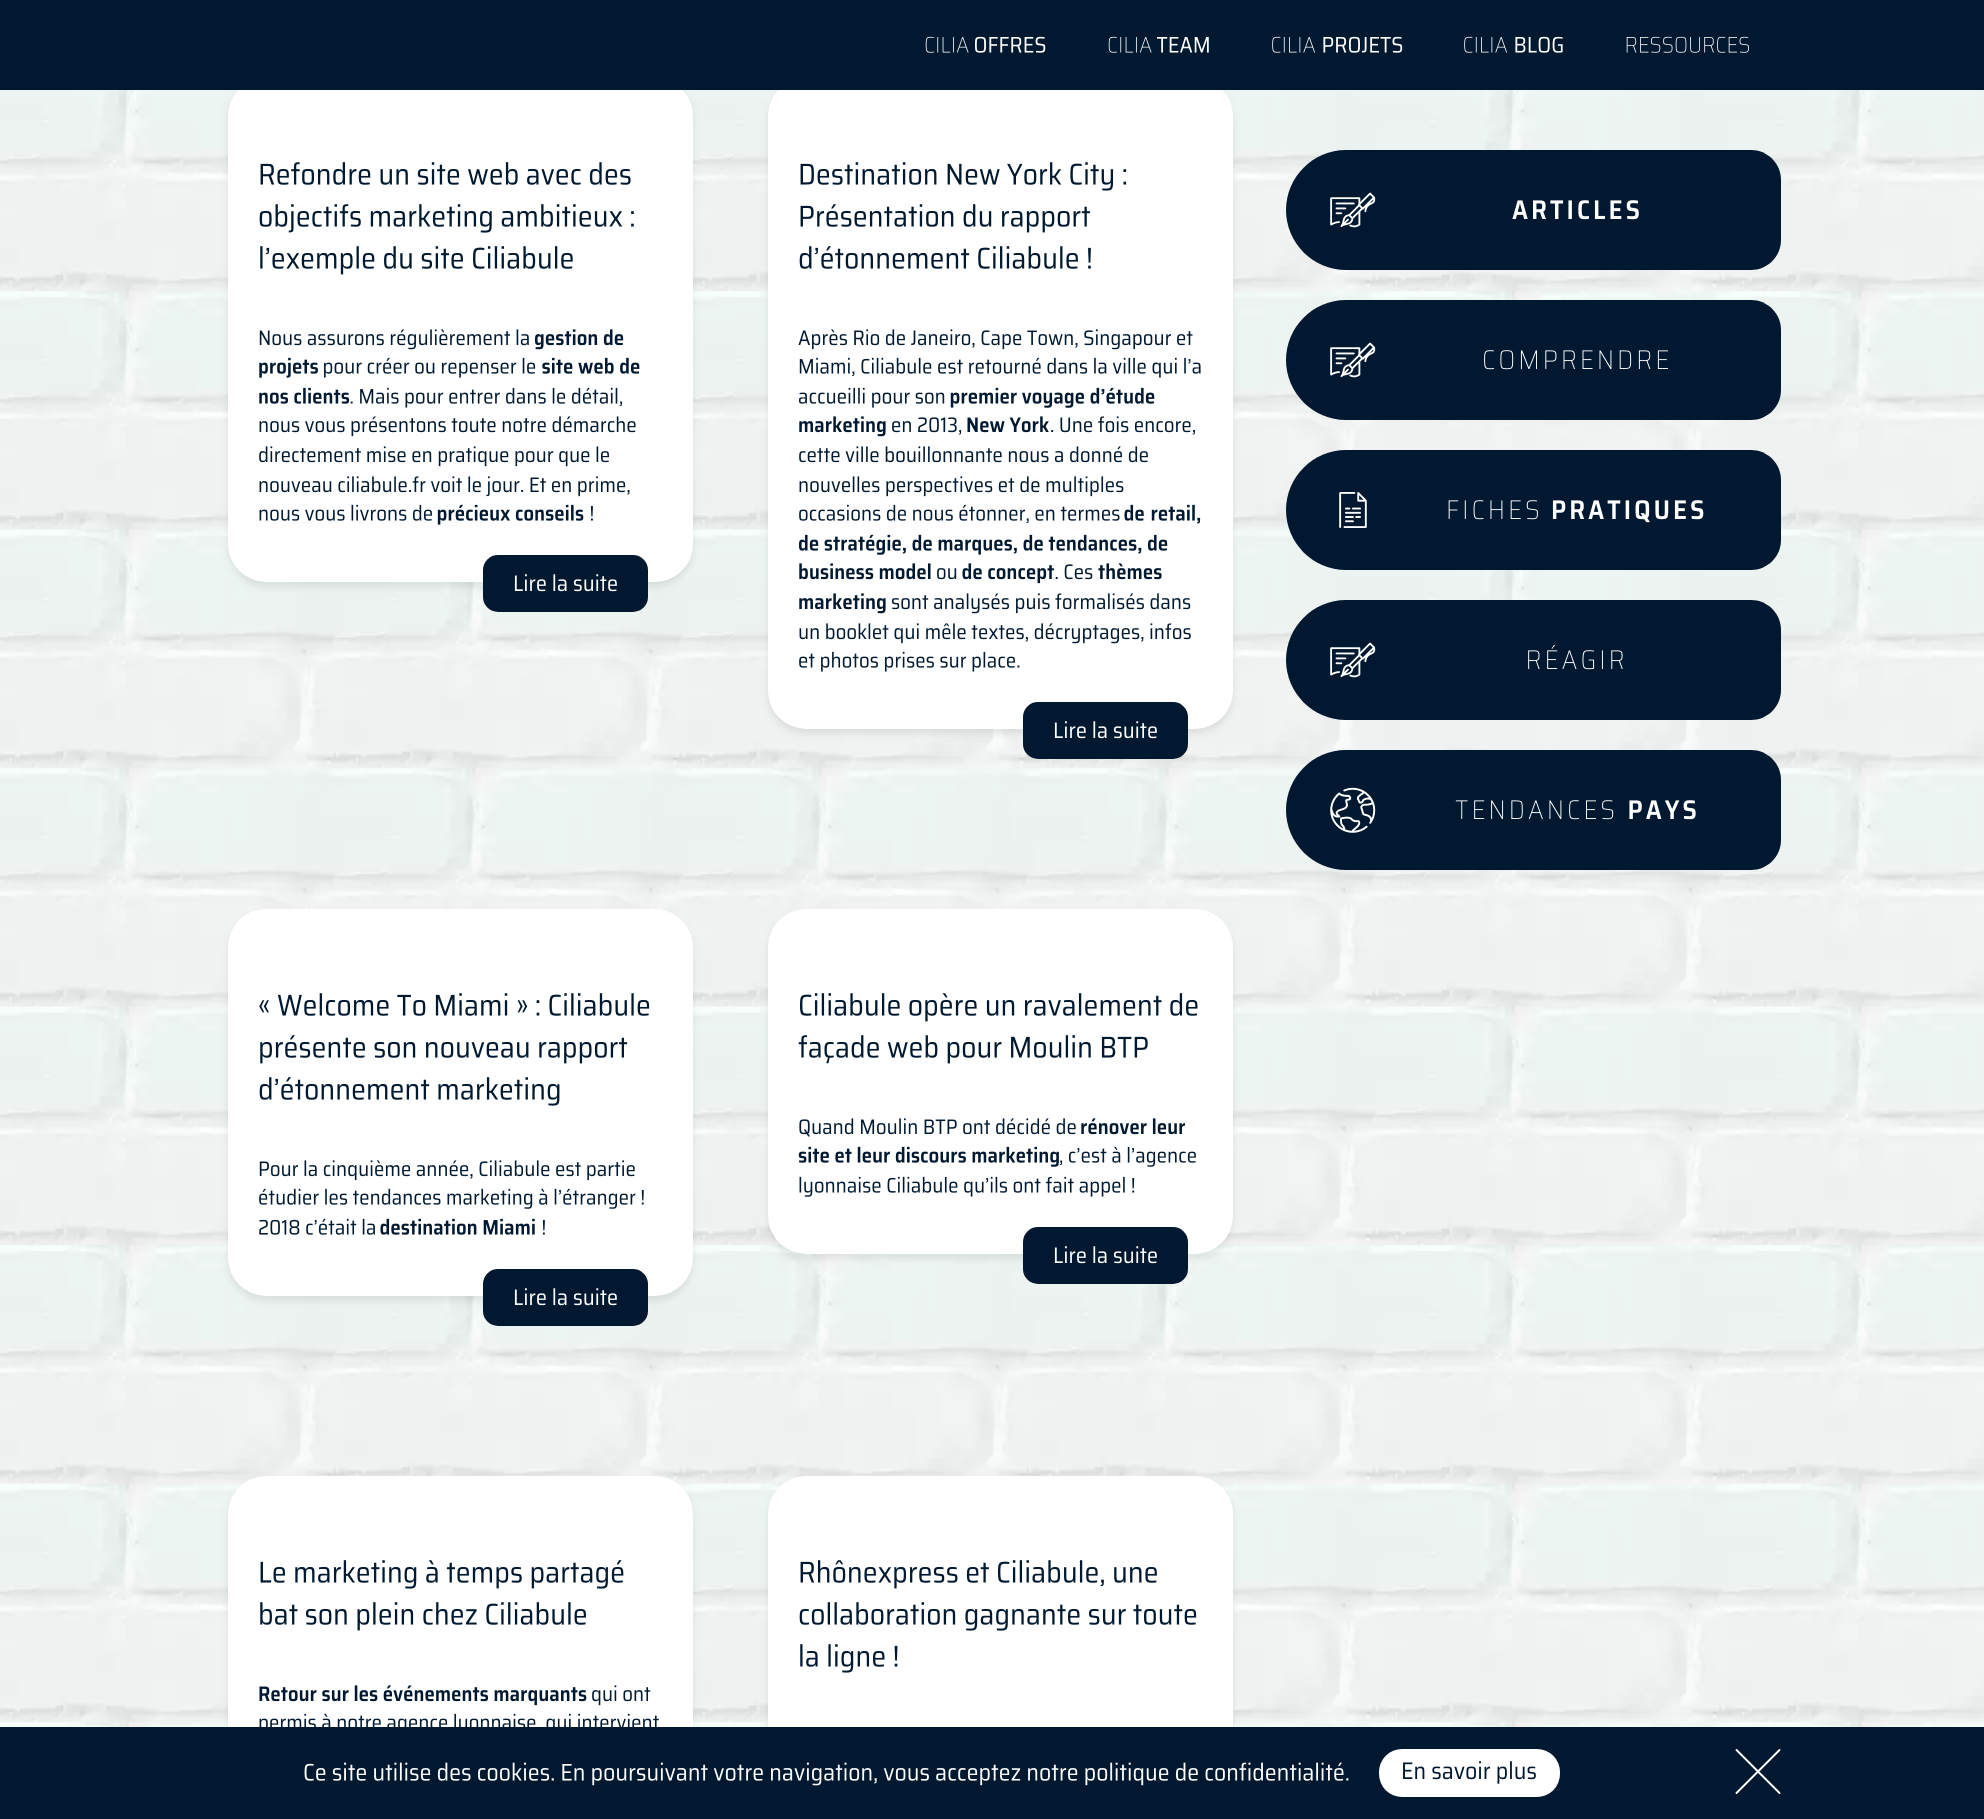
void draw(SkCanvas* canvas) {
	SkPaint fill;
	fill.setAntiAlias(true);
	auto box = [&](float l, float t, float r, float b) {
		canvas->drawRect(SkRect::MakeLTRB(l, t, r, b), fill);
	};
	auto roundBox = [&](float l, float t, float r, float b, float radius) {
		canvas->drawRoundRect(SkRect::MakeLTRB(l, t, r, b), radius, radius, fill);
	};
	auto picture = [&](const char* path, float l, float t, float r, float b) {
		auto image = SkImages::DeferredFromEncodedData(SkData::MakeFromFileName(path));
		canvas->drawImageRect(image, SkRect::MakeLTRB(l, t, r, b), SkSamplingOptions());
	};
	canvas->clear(0xFFFFFFFF);
	picture("image7.png", 0, 90, 1984, 1727);
	fill.setColor(0x14000000);
	fill.setMaskFilter(SkMaskFilter::MakeBlur(kNormal_SkBlurStyle, 3));
	canvas->drawRoundRect(SkRect::MakeLTRB(228, 83, 693, 587), 38, 38, fill);
	fill.setMaskFilter(nullptr);
	fill.setColor(0xFFFFFFFF);
	roundBox(228, 78, 693, 582, 38);
	fill.setColor(0x14000000);
	fill.setMaskFilter(SkMaskFilter::MakeBlur(kNormal_SkBlurStyle, 3));
	canvas->drawRoundRect(SkRect::MakeLTRB(768, 83, 1233, 734), 38, 38, fill);
	fill.setMaskFilter(nullptr);
	fill.setColor(0xFFFFFFFF);
	roundBox(768, 78, 1233, 729, 38);
	fill.setColor(0xFF001830);
	box(0, 0, 1984, 90);
	picture("image0.png", 925, 36, 969, 53);
	picture("image1.png", 975, 36, 1046, 53);
	picture("image0.png", 1108, 36, 1152, 53);
	picture("image2.png", 1157, 37, 1209, 53);
	picture("image3.png", 1272, 36, 1315, 53);
	picture("image4.png", 1323, 36, 1403, 53);
	picture("image3.png", 1464, 36, 1507, 53);
	picture("image5.png", 1515, 36, 1563, 53);
	picture("image6.png", 1626, 36, 1749, 53);
	picture("image8.png", 260, 162, 631, 185);
	picture("image9.png", 259, 204, 634, 233);
	picture("image10.png", 260, 246, 573, 275);
	picture("image11.png", 259, 329, 529, 350);
	picture("image12.png", 534, 329, 624, 350);
	picture("image13.png", 259, 357, 318, 378);
	picture("image14.png", 324, 357, 536, 378);
	picture("image15.png", 542, 357, 640, 374);
	picture("image16.png", 259, 387, 350, 404);
	picture("image17.png", 350, 387, 622, 408);
	picture("image18.png", 259, 416, 636, 437);
	picture("image19.png", 259, 446, 609, 467);
	picture("image20.png", 259, 476, 630, 497);
	picture("image21.png", 259, 504, 432, 521);
	picture("image22.png", 437, 504, 584, 525);
	picture("image23.png", 591, 506, 593, 521);
	roundBox(483, 555, 648, 612, 15);
	picture("image24.png", 514, 574, 617, 592);
	picture("image25.png", 800, 162, 1127, 191);
	picture("image26.png", 800, 204, 1090, 233);
	picture("image27.png", 799, 246, 1091, 269);
	picture("image28.png", 798, 329, 1193, 350);
	picture("image29.png", 799, 357, 1201, 378);
	picture("image30.png", 799, 387, 945, 408);
	picture("image31.png", 950, 387, 1155, 408);
	picture("image32.png", 799, 416, 886, 437);
	picture("image33.png", 892, 417, 962, 435);
	picture("image34.png", 967, 416, 1049, 433);
	picture("image35.png", 1051, 416, 1195, 435);
	picture("image36.png", 799, 446, 1148, 463);
	picture("image37.png", 799, 476, 1124, 497);
	picture("image38.png", 799, 504, 1120, 523);
	picture("image39.png", 1124, 504, 1144, 521);
	picture("image40.png", 1151, 504, 1201, 524);
	picture("image41.png", 799, 534, 1168, 555);
	picture("image42.png", 799, 563, 931, 580);
	picture("image43.png", 937, 568, 957, 580);
	picture("image44.png", 962, 563, 1054, 584);
	picture("image45.png", 1055, 564, 1093, 580);
	picture("image46.png", 1098, 563, 1162, 580);
	picture("image32.png", 799, 593, 886, 614);
	picture("image47.png", 891, 593, 1191, 614);
	picture("image48.png", 799, 623, 1191, 644);
	picture("image49.png", 799, 651, 1020, 672);
	roundBox(1023, 702, 1188, 759, 15);
	picture("image24.png", 1054, 721, 1157, 739);
	fill.setColor(0x14000000);
	fill.setMaskFilter(SkMaskFilter::MakeBlur(kNormal_SkBlurStyle, 3));
	canvas->drawRoundRect(SkRect::MakeLTRB(228, 914, 693, 1301), 38, 38, fill);
	fill.setMaskFilter(nullptr);
	fill.setColor(0xFFFFFFFF);
	roundBox(228, 909, 693, 1296, 38);
	picture("image50.png", 259, 993, 650, 1016);
	picture("image51.png", 260, 1035, 628, 1064);
	picture("image52.png", 259, 1077, 560, 1106);
	picture("image53.png", 259, 1160, 635, 1181);
	picture("image54.png", 259, 1188, 644, 1209);
	picture("image55.png", 259, 1218, 375, 1235);
	picture("image56.png", 380, 1218, 535, 1235);
	picture("image57.png", 542, 1220, 545, 1235);
	fill.setColor(0xFF001830);
	roundBox(483, 1269, 648, 1326, 15);
	picture("image24.png", 514, 1288, 617, 1306);
	fill.setColor(0x14000000);
	fill.setMaskFilter(SkMaskFilter::MakeBlur(kNormal_SkBlurStyle, 3));
	canvas->drawRoundRect(SkRect::MakeLTRB(768, 914, 1233, 1259), 38, 38, fill);
	fill.setMaskFilter(nullptr);
	fill.setColor(0xFFFFFFFF);
	roundBox(768, 909, 1233, 1254, 38);
	picture("image58.png", 800, 993, 1198, 1022);
	picture("image59.png", 798, 1035, 1148, 1064);
	picture("image60.png", 799, 1118, 1076, 1137);
	picture("image61.png", 1081, 1118, 1186, 1135);
	picture("image62.png", 798, 1146, 1059, 1167);
	picture("image63.png", 1059, 1146, 1196, 1167);
	picture("image64.png", 799, 1176, 1135, 1197);
	fill.setColor(0xFF001830);
	roundBox(1023, 1227, 1188, 1284, 15);
	picture("image24.png", 1054, 1246, 1157, 1264);
	fill.setColor(0x14000000);
	fill.setMaskFilter(SkMaskFilter::MakeBlur(kNormal_SkBlurStyle, 3));
	canvas->drawRoundRect(SkRect::MakeLTRB(228, 1481, 693, 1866), 38, 38, fill);
	fill.setMaskFilter(nullptr);
	fill.setColor(0xFFFFFFFF);
	roundBox(228, 1476, 693, 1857, 38);
	picture("image65.png", 260, 1560, 624, 1589);
	picture("image66.png", 260, 1602, 586, 1631);
	picture("image67.png", 259, 1685, 587, 1706);
	picture("image68.png", 592, 1685, 651, 1706);
	picture("image69.png", 259, 1713, 659, 1727);
	fill.setColor(0x14000000);
	fill.setMaskFilter(SkMaskFilter::MakeBlur(kNormal_SkBlurStyle, 3));
	canvas->drawRoundRect(SkRect::MakeLTRB(768, 1481, 1233, 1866), 38, 38, fill);
	fill.setMaskFilter(nullptr);
	fill.setColor(0xFFFFFFFF);
	roundBox(768, 1476, 1233, 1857, 38);
	picture("image70.png", 800, 1560, 1157, 1589);
	picture("image71.png", 799, 1602, 1197, 1631);
	picture("image72.png", 800, 1644, 898, 1673);
	fill.setColor(0xFF001830);
	canvas->drawPath(SkPathBuilder().moveTo(1346, 150).lineTo(1751, 150).cubicTo(1767.5f, 150, 1781, 163.5f, 1781, 180).lineTo(1781, 240).cubicTo(1781, 256.5f, 1767.5f, 270, 1751, 270).lineTo(1346, 270).cubicTo(1313, 270, 1286, 243, 1286, 210).cubicTo(1286, 177, 1313, 150, 1346, 150).close().detach(), fill);
	picture("image73.png", 1330, 192, 1376, 228);
	picture("image74.png", 1512, 200, 1639, 220);
	canvas->drawPath(SkPathBuilder().moveTo(1346, 300).lineTo(1751, 300).cubicTo(1767.5f, 300, 1781, 313.5f, 1781, 330).lineTo(1781, 390).cubicTo(1781, 406.5f, 1767.5f, 420, 1751, 420).lineTo(1346, 420).cubicTo(1313, 420, 1286, 393, 1286, 360).cubicTo(1286, 327, 1313, 300, 1346, 300).close().detach(), fill);
	picture("image73.png", 1330, 342, 1376, 378);
	picture("image75.png", 1484, 350, 1668, 370);
	canvas->drawPath(SkPathBuilder().moveTo(1346, 450).lineTo(1751, 450).cubicTo(1767.5f, 450, 1781, 463.5f, 1781, 480).lineTo(1781, 540).cubicTo(1781, 556.5f, 1767.5f, 570, 1751, 570).lineTo(1346, 570).cubicTo(1313, 570, 1286, 543, 1286, 510).cubicTo(1286, 477, 1313, 450, 1346, 450).close().detach(), fill);
	picture("image76.png", 1339, 492, 1367, 528);
	picture("image77.png", 1448, 500, 1538, 520);
	picture("image78.png", 1552, 500, 1704, 523);
	canvas->drawPath(SkPathBuilder().moveTo(1346, 600).lineTo(1751, 600).cubicTo(1767.5f, 600, 1781, 613.5f, 1781, 630).lineTo(1781, 690).cubicTo(1781, 706.5f, 1767.5f, 720, 1751, 720).lineTo(1346, 720).cubicTo(1313, 720, 1286, 693, 1286, 660).cubicTo(1286, 627, 1313, 600, 1346, 600).close().detach(), fill);
	picture("image73.png", 1330, 642, 1376, 678);
	picture("image79.png", 1528, 645, 1623, 670);
	canvas->drawPath(SkPathBuilder().moveTo(1346, 750).lineTo(1751, 750).cubicTo(1767.5f, 750, 1781, 763.5f, 1781, 780).lineTo(1781, 840).cubicTo(1781, 856.5f, 1767.5f, 870, 1751, 870).lineTo(1346, 870).cubicTo(1313, 870, 1286, 843, 1286, 810).cubicTo(1286, 777, 1313, 750, 1346, 750).close().detach(), fill);
	picture("image80.png", 1330, 787, 1376, 833);
	picture("image81.png", 1455, 800, 1614, 820);
	picture("image82.png", 1629, 800, 1696, 820);
	box(0, 1727, 1984, 1819);
	picture("image83.png", 304, 1762, 1349, 1786);
	fill.setColor(0xFFFFFFFF);
	roundBox(1379, 1749, 1560, 1797, 23);
	picture("image84.png", 1403, 1761, 1536, 1784);
	fill.setStyle(SkPaint::kStroke_Style);
	fill.setStrokeWidth(1.9f);
	fill.setStrokeCap(SkPaint::kRound_Cap);
	fill.setStrokeJoin(SkPaint::kRound_Join);
	canvas->drawPath(SkPathBuilder().moveTo(1736.5f, 1750).lineTo(1779.5f, 1793).moveTo(1736.5f, 1793).lineTo(1779.5f, 1750).detach(), fill);
}
